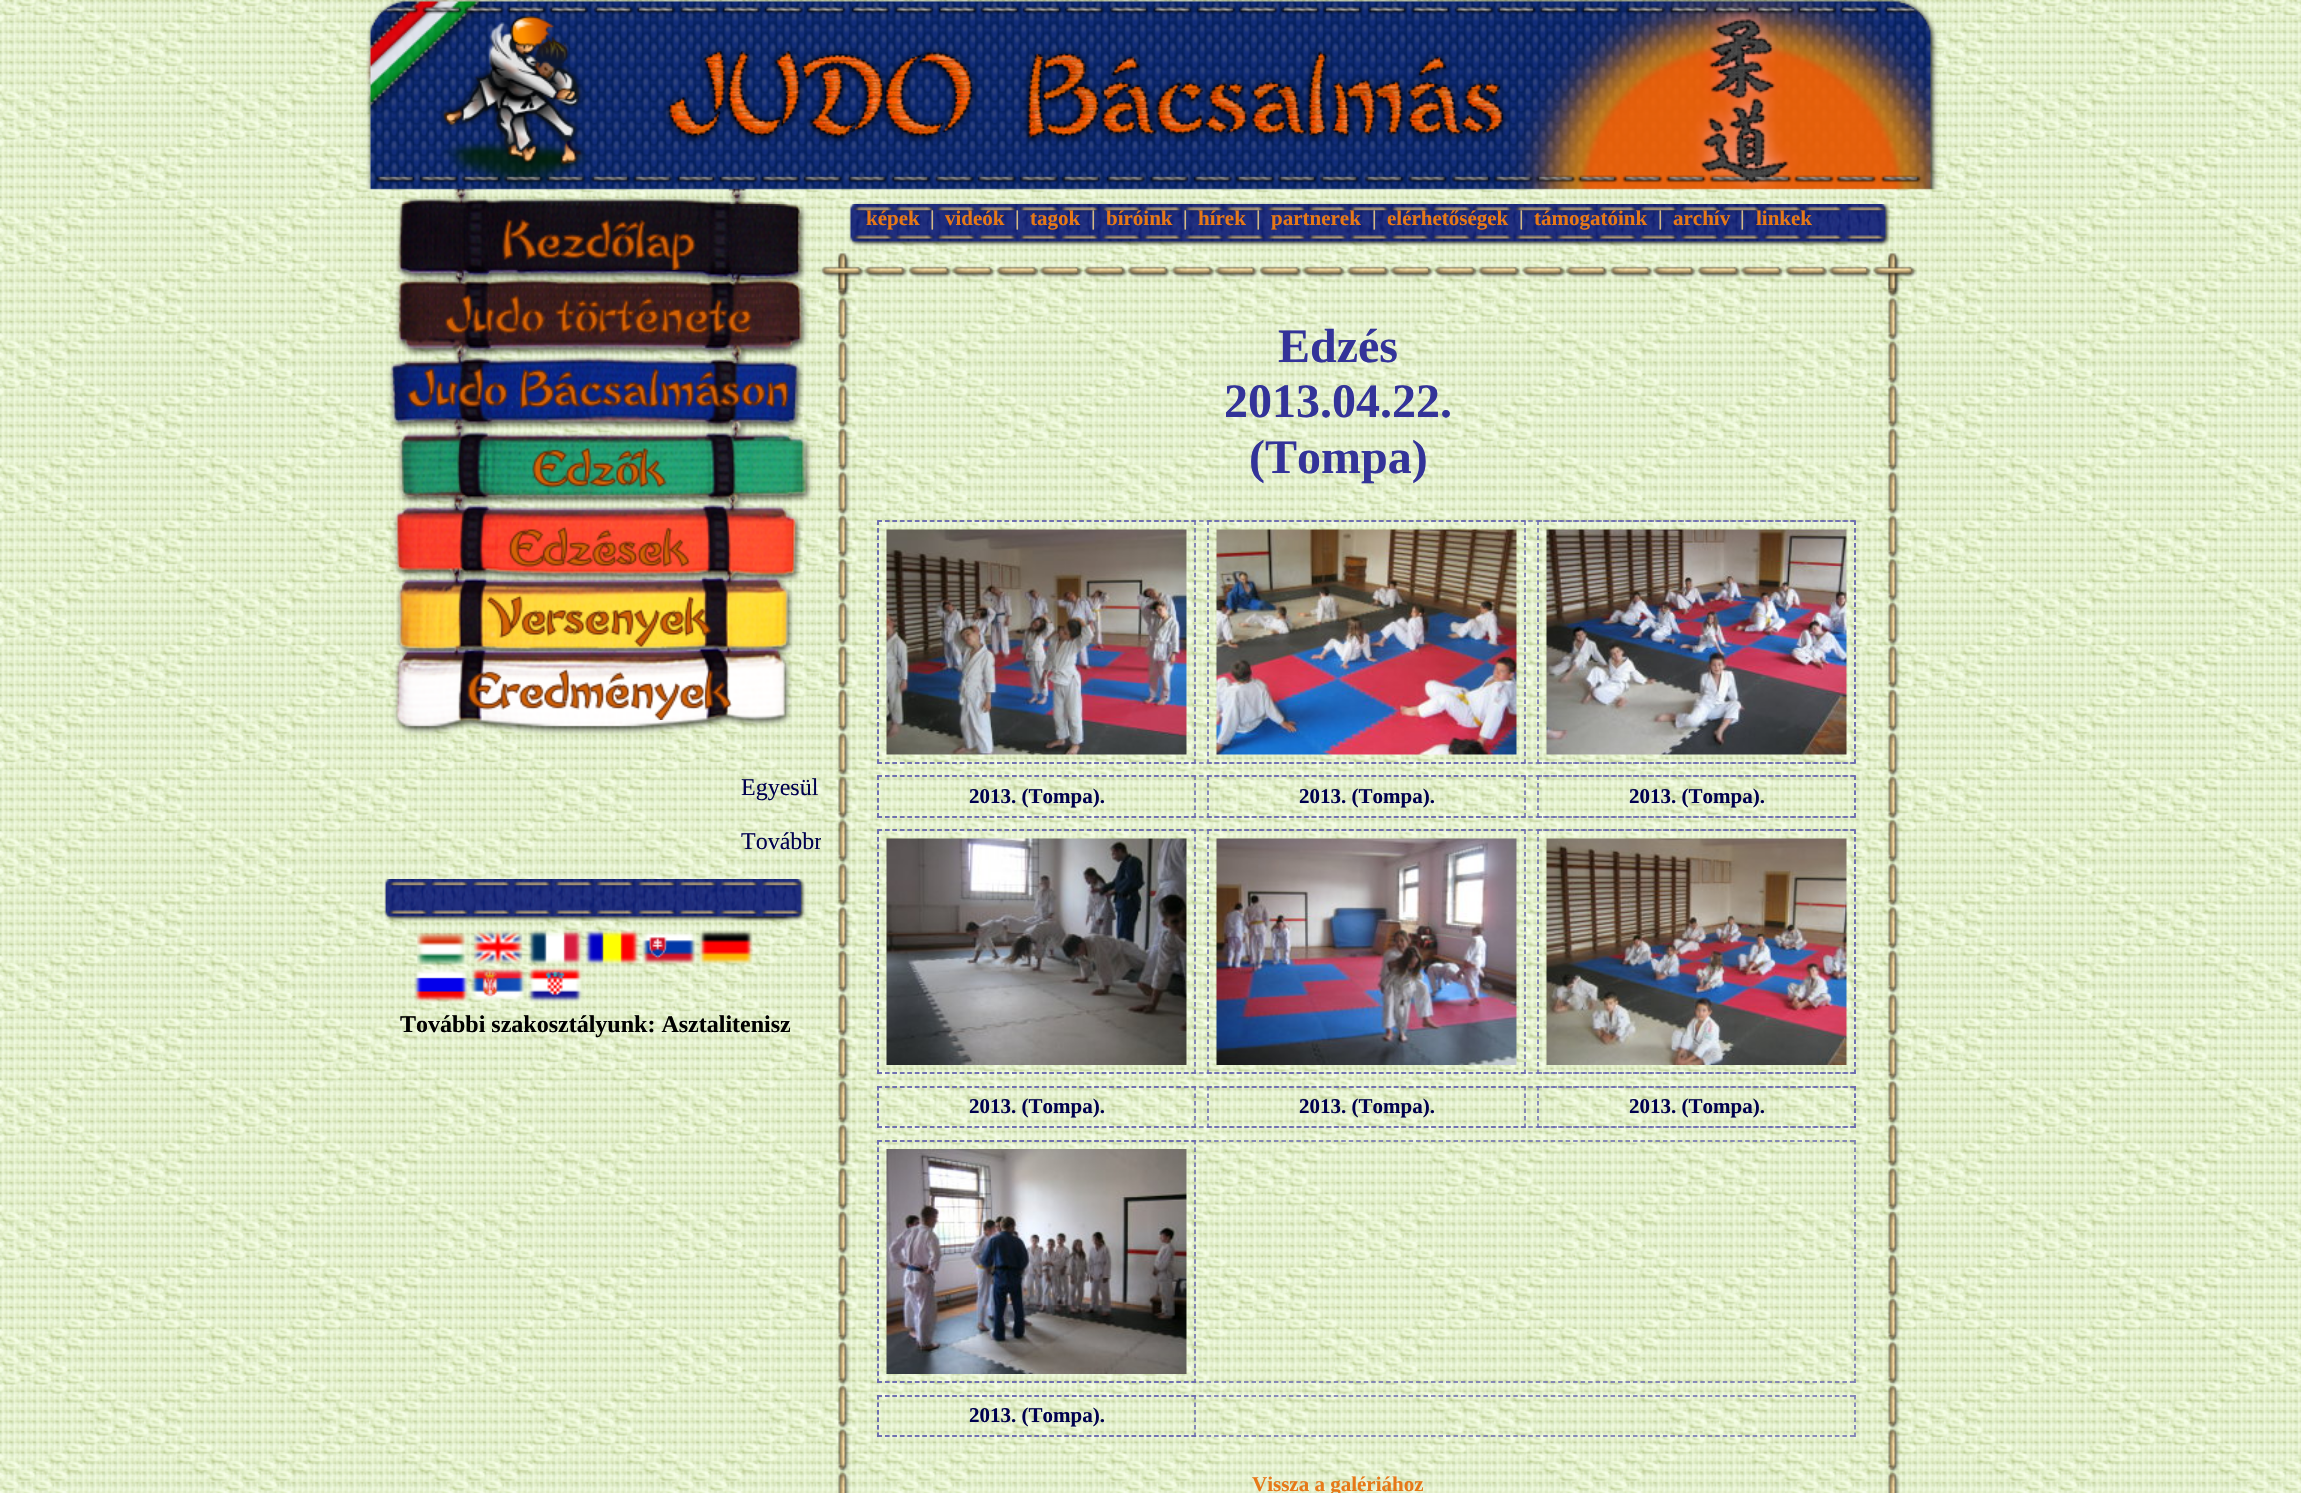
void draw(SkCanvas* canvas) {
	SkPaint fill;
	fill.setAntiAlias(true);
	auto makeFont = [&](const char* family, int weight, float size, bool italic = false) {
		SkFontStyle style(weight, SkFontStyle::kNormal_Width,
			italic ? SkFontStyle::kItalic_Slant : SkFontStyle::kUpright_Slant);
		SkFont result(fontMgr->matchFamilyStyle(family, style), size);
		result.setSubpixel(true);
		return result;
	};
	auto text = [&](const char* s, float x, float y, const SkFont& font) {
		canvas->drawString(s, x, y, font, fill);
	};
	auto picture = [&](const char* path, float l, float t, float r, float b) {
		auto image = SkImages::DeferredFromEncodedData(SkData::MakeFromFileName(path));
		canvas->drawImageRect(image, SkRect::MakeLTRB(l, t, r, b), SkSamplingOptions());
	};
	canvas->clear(0xFFFFFFFF);
	picture("image0.png", 0, 0, 2301, 1493);
	picture("image1.png", 366, 0, 1938, 204);
	picture("image2.png", 849, 204, 1890, 246);
	picture("image3.png", 388, 204, 813, 735);
	picture("image4.png", 502, 219, 696, 270);
	picture("image5.png", 445, 294, 752, 335);
	picture("image6.png", 407, 367, 790, 410);
	picture("image7.png", 532, 447, 667, 488);
	picture("image8.png", 508, 526, 691, 568);
	picture("image9.png", 487, 595, 712, 647);
	picture("image10.png", 466, 669, 733, 720);
	picture("image11.png", 416, 932, 466, 965);
	picture("image12.png", 473, 930, 523, 964);
	picture("image13.png", 528, 930, 582, 965);
	picture("image14.png", 585, 930, 639, 965);
	picture("image15.png", 642, 931, 696, 965);
	picture("image16.png", 699, 930, 753, 965);
	picture("image17.png", 414, 968, 468, 1002);
	picture("image18.png", 471, 968, 525, 1001);
	picture("image19.png", 528, 967, 582, 1002);
	picture("image20.png", 384, 879, 806, 922);
	picture("image21.png", 838, 253, 1900, 1493);
	picture("image22.png", 820, 253, 1917, 294);
	fill.setStyle(SkPaint::kStroke_Style);
	fill.setStrokeWidth(1.5f);
	fill.setColor(0xFF6868AF);
	fill.setPathEffect(SkDashPathEffect::Make({{4.5f, 2.98f}}, 0));
	canvas->drawPath(SkPathBuilder().moveTo(877.5f, 521).lineTo(1855.5f, 521).detach(), fill);
	fill.setPathEffect(nullptr);
	fill.setPathEffect(SkDashPathEffect::Make({{4.5f, 2.96f}}, 0));
	canvas->drawPath(SkPathBuilder().moveTo(1855, 520.5f).lineTo(1855, 763.5f).detach(), fill);
	fill.setPathEffect(nullptr);
	fill.setPathEffect(SkDashPathEffect::Make({{4.5f, 2.98f}}, 0));
	canvas->drawPath(SkPathBuilder().moveTo(877.5f, 763).lineTo(1855.5f, 763).detach(), fill);
	fill.setPathEffect(nullptr);
	fill.setPathEffect(SkDashPathEffect::Make({{4.5f, 2.96f}}, 0));
	canvas->drawPath(SkPathBuilder().moveTo(878, 520.5f).lineTo(878, 763.5f).detach(), fill);
	fill.setPathEffect(nullptr);
	fill.setPathEffect(SkDashPathEffect::Make({{4.5f, 2.97f}}, 0));
	canvas->drawPath(SkPathBuilder().moveTo(877.5f, 521).lineTo(1195.5f, 521).detach(), fill);
	fill.setPathEffect(nullptr);
	fill.setPathEffect(SkDashPathEffect::Make({{4.5f, 2.96f}}, 0));
	canvas->drawPath(SkPathBuilder().moveTo(1195, 520.5f).lineTo(1195, 763.5f).detach(), fill);
	fill.setPathEffect(nullptr);
	fill.setPathEffect(SkDashPathEffect::Make({{4.5f, 2.97f}}, 0));
	canvas->drawPath(SkPathBuilder().moveTo(877.5f, 763).lineTo(1195.5f, 763).detach(), fill);
	fill.setPathEffect(nullptr);
	fill.setPathEffect(SkDashPathEffect::Make({{4.5f, 2.96f}}, 0));
	canvas->drawPath(SkPathBuilder().moveTo(878, 520.5f).lineTo(878, 763.5f).detach(), fill);
	fill.setPathEffect(nullptr);
	picture("image23.png", 886, 529, 1187, 755);
	fill.setPathEffect(SkDashPathEffect::Make({{4.5f, 2.97f}}, 0));
	canvas->drawPath(SkPathBuilder().moveTo(1207.5f, 521).lineTo(1525.5f, 521).detach(), fill);
	fill.setPathEffect(nullptr);
	fill.setPathEffect(SkDashPathEffect::Make({{4.5f, 2.96f}}, 0));
	canvas->drawPath(SkPathBuilder().moveTo(1525, 520.5f).lineTo(1525, 763.5f).detach(), fill);
	fill.setPathEffect(nullptr);
	fill.setPathEffect(SkDashPathEffect::Make({{4.5f, 2.97f}}, 0));
	canvas->drawPath(SkPathBuilder().moveTo(1207.5f, 763).lineTo(1525.5f, 763).detach(), fill);
	fill.setPathEffect(nullptr);
	fill.setPathEffect(SkDashPathEffect::Make({{4.5f, 2.96f}}, 0));
	canvas->drawPath(SkPathBuilder().moveTo(1208, 520.5f).lineTo(1208, 763.5f).detach(), fill);
	fill.setPathEffect(nullptr);
	picture("image24.png", 1216, 529, 1517, 755);
	fill.setPathEffect(SkDashPathEffect::Make({{4.5f, 2.97f}}, 0));
	canvas->drawPath(SkPathBuilder().moveTo(1537.5f, 521).lineTo(1855.5f, 521).detach(), fill);
	fill.setPathEffect(nullptr);
	fill.setPathEffect(SkDashPathEffect::Make({{4.5f, 2.96f}}, 0));
	canvas->drawPath(SkPathBuilder().moveTo(1855, 520.5f).lineTo(1855, 763.5f).detach(), fill);
	fill.setPathEffect(nullptr);
	fill.setPathEffect(SkDashPathEffect::Make({{4.5f, 2.97f}}, 0));
	canvas->drawPath(SkPathBuilder().moveTo(1537.5f, 763).lineTo(1855.5f, 763).detach(), fill);
	fill.setPathEffect(nullptr);
	fill.setPathEffect(SkDashPathEffect::Make({{4.5f, 2.96f}}, 0));
	canvas->drawPath(SkPathBuilder().moveTo(1538, 520.5f).lineTo(1538, 763.5f).detach(), fill);
	fill.setPathEffect(nullptr);
	picture("image25.png", 1546, 529, 1847, 755);
	fill.setPathEffect(SkDashPathEffect::Make({{4.5f, 2.98f}}, 0));
	canvas->drawPath(SkPathBuilder().moveTo(877.5f, 776).lineTo(1855.5f, 776).detach(), fill);
	fill.setPathEffect(nullptr);
	fill.setPathEffect(SkDashPathEffect::Make({{4.5f, 3}}, 0));
	canvas->drawPath(SkPathBuilder().moveTo(1855, 775.5f).lineTo(1855, 817.5f).detach(), fill);
	fill.setPathEffect(nullptr);
	fill.setPathEffect(SkDashPathEffect::Make({{4.5f, 2.98f}}, 0));
	canvas->drawPath(SkPathBuilder().moveTo(877.5f, 817).lineTo(1855.5f, 817).detach(), fill);
	fill.setPathEffect(nullptr);
	fill.setPathEffect(SkDashPathEffect::Make({{4.5f, 3}}, 0));
	canvas->drawPath(SkPathBuilder().moveTo(878, 775.5f).lineTo(878, 817.5f).detach(), fill);
	fill.setPathEffect(nullptr);
	fill.setPathEffect(SkDashPathEffect::Make({{4.5f, 2.97f}}, 0));
	canvas->drawPath(SkPathBuilder().moveTo(877.5f, 776).lineTo(1195.5f, 776).detach(), fill);
	fill.setPathEffect(nullptr);
	fill.setPathEffect(SkDashPathEffect::Make({{4.5f, 3}}, 0));
	canvas->drawPath(SkPathBuilder().moveTo(1195, 775.5f).lineTo(1195, 817.5f).detach(), fill);
	fill.setPathEffect(nullptr);
	fill.setPathEffect(SkDashPathEffect::Make({{4.5f, 2.97f}}, 0));
	canvas->drawPath(SkPathBuilder().moveTo(877.5f, 817).lineTo(1195.5f, 817).detach(), fill);
	fill.setPathEffect(nullptr);
	fill.setPathEffect(SkDashPathEffect::Make({{4.5f, 3}}, 0));
	canvas->drawPath(SkPathBuilder().moveTo(878, 775.5f).lineTo(878, 817.5f).detach(), fill);
	fill.setPathEffect(nullptr);
	fill.setPathEffect(SkDashPathEffect::Make({{4.5f, 2.97f}}, 0));
	canvas->drawPath(SkPathBuilder().moveTo(1207.5f, 776).lineTo(1525.5f, 776).detach(), fill);
	fill.setPathEffect(nullptr);
	fill.setPathEffect(SkDashPathEffect::Make({{4.5f, 3}}, 0));
	canvas->drawPath(SkPathBuilder().moveTo(1525, 775.5f).lineTo(1525, 817.5f).detach(), fill);
	fill.setPathEffect(nullptr);
	fill.setPathEffect(SkDashPathEffect::Make({{4.5f, 2.97f}}, 0));
	canvas->drawPath(SkPathBuilder().moveTo(1207.5f, 817).lineTo(1525.5f, 817).detach(), fill);
	fill.setPathEffect(nullptr);
	fill.setPathEffect(SkDashPathEffect::Make({{4.5f, 3}}, 0));
	canvas->drawPath(SkPathBuilder().moveTo(1208, 775.5f).lineTo(1208, 817.5f).detach(), fill);
	fill.setPathEffect(nullptr);
	fill.setPathEffect(SkDashPathEffect::Make({{4.5f, 2.97f}}, 0));
	canvas->drawPath(SkPathBuilder().moveTo(1537.5f, 776).lineTo(1855.5f, 776).detach(), fill);
	fill.setPathEffect(nullptr);
	fill.setPathEffect(SkDashPathEffect::Make({{4.5f, 3}}, 0));
	canvas->drawPath(SkPathBuilder().moveTo(1855, 775.5f).lineTo(1855, 817.5f).detach(), fill);
	fill.setPathEffect(nullptr);
	fill.setPathEffect(SkDashPathEffect::Make({{4.5f, 2.97f}}, 0));
	canvas->drawPath(SkPathBuilder().moveTo(1537.5f, 817).lineTo(1855.5f, 817).detach(), fill);
	fill.setPathEffect(nullptr);
	fill.setPathEffect(SkDashPathEffect::Make({{4.5f, 3}}, 0));
	canvas->drawPath(SkPathBuilder().moveTo(1538, 775.5f).lineTo(1538, 817.5f).detach(), fill);
	fill.setPathEffect(nullptr);
	fill.setPathEffect(SkDashPathEffect::Make({{4.5f, 2.98f}}, 0));
	canvas->drawPath(SkPathBuilder().moveTo(877.5f, 830).lineTo(1855.5f, 830).detach(), fill);
	fill.setPathEffect(nullptr);
	fill.setPathEffect(SkDashPathEffect::Make({{4.5f, 3}}, 0));
	canvas->drawPath(SkPathBuilder().moveTo(1855, 829.5f).lineTo(1855, 1074).detach(), fill);
	fill.setPathEffect(nullptr);
	fill.setPathEffect(SkDashPathEffect::Make({{4.5f, 2.98f}}, 0));
	canvas->drawPath(SkPathBuilder().moveTo(877.5f, 1073).lineTo(1855.5f, 1073).detach(), fill);
	fill.setPathEffect(nullptr);
	fill.setPathEffect(SkDashPathEffect::Make({{4.5f, 3}}, 0));
	canvas->drawPath(SkPathBuilder().moveTo(878, 829.5f).lineTo(878, 1074).detach(), fill);
	fill.setPathEffect(nullptr);
	fill.setPathEffect(SkDashPathEffect::Make({{4.5f, 2.97f}}, 0));
	canvas->drawPath(SkPathBuilder().moveTo(877.5f, 830).lineTo(1195.5f, 830).detach(), fill);
	fill.setPathEffect(nullptr);
	fill.setPathEffect(SkDashPathEffect::Make({{4.5f, 3}}, 0));
	canvas->drawPath(SkPathBuilder().moveTo(1195, 829.5f).lineTo(1195, 1074).detach(), fill);
	fill.setPathEffect(nullptr);
	fill.setPathEffect(SkDashPathEffect::Make({{4.5f, 2.97f}}, 0));
	canvas->drawPath(SkPathBuilder().moveTo(877.5f, 1073).lineTo(1195.5f, 1073).detach(), fill);
	fill.setPathEffect(nullptr);
	fill.setPathEffect(SkDashPathEffect::Make({{4.5f, 3}}, 0));
	canvas->drawPath(SkPathBuilder().moveTo(878, 829.5f).lineTo(878, 1074).detach(), fill);
	fill.setPathEffect(nullptr);
	picture("image26.png", 886, 838, 1187, 1065);
	fill.setPathEffect(SkDashPathEffect::Make({{4.5f, 2.97f}}, 0));
	canvas->drawPath(SkPathBuilder().moveTo(1207.5f, 830).lineTo(1525.5f, 830).detach(), fill);
	fill.setPathEffect(nullptr);
	fill.setPathEffect(SkDashPathEffect::Make({{4.5f, 3}}, 0));
	canvas->drawPath(SkPathBuilder().moveTo(1525, 829.5f).lineTo(1525, 1074).detach(), fill);
	fill.setPathEffect(nullptr);
	fill.setPathEffect(SkDashPathEffect::Make({{4.5f, 2.97f}}, 0));
	canvas->drawPath(SkPathBuilder().moveTo(1207.5f, 1073).lineTo(1525.5f, 1073).detach(), fill);
	fill.setPathEffect(nullptr);
	fill.setPathEffect(SkDashPathEffect::Make({{4.5f, 3}}, 0));
	canvas->drawPath(SkPathBuilder().moveTo(1208, 829.5f).lineTo(1208, 1074).detach(), fill);
	fill.setPathEffect(nullptr);
	picture("image27.png", 1216, 838, 1517, 1065);
	fill.setPathEffect(SkDashPathEffect::Make({{4.5f, 2.97f}}, 0));
	canvas->drawPath(SkPathBuilder().moveTo(1537.5f, 830).lineTo(1855.5f, 830).detach(), fill);
	fill.setPathEffect(nullptr);
	fill.setPathEffect(SkDashPathEffect::Make({{4.5f, 3}}, 0));
	canvas->drawPath(SkPathBuilder().moveTo(1855, 829.5f).lineTo(1855, 1074).detach(), fill);
	fill.setPathEffect(nullptr);
	fill.setPathEffect(SkDashPathEffect::Make({{4.5f, 2.97f}}, 0));
	canvas->drawPath(SkPathBuilder().moveTo(1537.5f, 1073).lineTo(1855.5f, 1073).detach(), fill);
	fill.setPathEffect(nullptr);
	fill.setPathEffect(SkDashPathEffect::Make({{4.5f, 3}}, 0));
	canvas->drawPath(SkPathBuilder().moveTo(1538, 829.5f).lineTo(1538, 1074).detach(), fill);
	fill.setPathEffect(nullptr);
	picture("image28.png", 1546, 838, 1847, 1065);
	fill.setPathEffect(SkDashPathEffect::Make({{4.5f, 2.98f}}, 0));
	canvas->drawPath(SkPathBuilder().moveTo(877.5f, 1087).lineTo(1855.5f, 1087).detach(), fill);
	fill.setPathEffect(nullptr);
	fill.setPathEffect(SkDashPathEffect::Make({{4.5f, 3}}, 0));
	canvas->drawPath(SkPathBuilder().moveTo(1855, 1086).lineTo(1855, 1128).detach(), fill);
	fill.setPathEffect(nullptr);
	fill.setPathEffect(SkDashPathEffect::Make({{4.5f, 2.98f}}, 0));
	canvas->drawPath(SkPathBuilder().moveTo(877.5f, 1127).lineTo(1855.5f, 1127).detach(), fill);
	fill.setPathEffect(nullptr);
	fill.setPathEffect(SkDashPathEffect::Make({{4.5f, 3}}, 0));
	canvas->drawPath(SkPathBuilder().moveTo(878, 1086).lineTo(878, 1128).detach(), fill);
	fill.setPathEffect(nullptr);
	fill.setPathEffect(SkDashPathEffect::Make({{4.5f, 2.97f}}, 0));
	canvas->drawPath(SkPathBuilder().moveTo(877.5f, 1087).lineTo(1195.5f, 1087).detach(), fill);
	fill.setPathEffect(nullptr);
	fill.setPathEffect(SkDashPathEffect::Make({{4.5f, 3}}, 0));
	canvas->drawPath(SkPathBuilder().moveTo(1195, 1086).lineTo(1195, 1128).detach(), fill);
	fill.setPathEffect(nullptr);
	fill.setPathEffect(SkDashPathEffect::Make({{4.5f, 2.97f}}, 0));
	canvas->drawPath(SkPathBuilder().moveTo(877.5f, 1127).lineTo(1195.5f, 1127).detach(), fill);
	fill.setPathEffect(nullptr);
	fill.setPathEffect(SkDashPathEffect::Make({{4.5f, 3}}, 0));
	canvas->drawPath(SkPathBuilder().moveTo(878, 1086).lineTo(878, 1128).detach(), fill);
	fill.setPathEffect(nullptr);
	fill.setPathEffect(SkDashPathEffect::Make({{4.5f, 2.97f}}, 0));
	canvas->drawPath(SkPathBuilder().moveTo(1207.5f, 1087).lineTo(1525.5f, 1087).detach(), fill);
	fill.setPathEffect(nullptr);
	fill.setPathEffect(SkDashPathEffect::Make({{4.5f, 3}}, 0));
	canvas->drawPath(SkPathBuilder().moveTo(1525, 1086).lineTo(1525, 1128).detach(), fill);
	fill.setPathEffect(nullptr);
	fill.setPathEffect(SkDashPathEffect::Make({{4.5f, 2.97f}}, 0));
	canvas->drawPath(SkPathBuilder().moveTo(1207.5f, 1127).lineTo(1525.5f, 1127).detach(), fill);
	fill.setPathEffect(nullptr);
	fill.setPathEffect(SkDashPathEffect::Make({{4.5f, 3}}, 0));
	canvas->drawPath(SkPathBuilder().moveTo(1208, 1086).lineTo(1208, 1128).detach(), fill);
	fill.setPathEffect(nullptr);
	fill.setPathEffect(SkDashPathEffect::Make({{4.5f, 2.97f}}, 0));
	canvas->drawPath(SkPathBuilder().moveTo(1537.5f, 1087).lineTo(1855.5f, 1087).detach(), fill);
	fill.setPathEffect(nullptr);
	fill.setPathEffect(SkDashPathEffect::Make({{4.5f, 3}}, 0));
	canvas->drawPath(SkPathBuilder().moveTo(1855, 1086).lineTo(1855, 1128).detach(), fill);
	fill.setPathEffect(nullptr);
	fill.setPathEffect(SkDashPathEffect::Make({{4.5f, 2.97f}}, 0));
	canvas->drawPath(SkPathBuilder().moveTo(1537.5f, 1127).lineTo(1855.5f, 1127).detach(), fill);
	fill.setPathEffect(nullptr);
	fill.setPathEffect(SkDashPathEffect::Make({{4.5f, 3}}, 0));
	canvas->drawPath(SkPathBuilder().moveTo(1538, 1086).lineTo(1538, 1128).detach(), fill);
	fill.setPathEffect(nullptr);
	fill.setPathEffect(SkDashPathEffect::Make({{4.5f, 2.98f}}, 0));
	canvas->drawPath(SkPathBuilder().moveTo(877.5f, 1141).lineTo(1855.5f, 1141).detach(), fill);
	fill.setPathEffect(nullptr);
	fill.setPathEffect(SkDashPathEffect::Make({{4.5f, 2.96f}}, 0));
	canvas->drawPath(SkPathBuilder().moveTo(1855, 1140).lineTo(1855, 1383).detach(), fill);
	fill.setPathEffect(nullptr);
	fill.setPathEffect(SkDashPathEffect::Make({{4.5f, 2.98f}}, 0));
	canvas->drawPath(SkPathBuilder().moveTo(877.5f, 1382).lineTo(1855.5f, 1382).detach(), fill);
	fill.setPathEffect(nullptr);
	fill.setPathEffect(SkDashPathEffect::Make({{4.5f, 2.96f}}, 0));
	canvas->drawPath(SkPathBuilder().moveTo(878, 1140).lineTo(878, 1383).detach(), fill);
	fill.setPathEffect(nullptr);
	fill.setPathEffect(SkDashPathEffect::Make({{4.5f, 2.97f}}, 0));
	canvas->drawPath(SkPathBuilder().moveTo(877.5f, 1141).lineTo(1195.5f, 1141).detach(), fill);
	fill.setPathEffect(nullptr);
	fill.setPathEffect(SkDashPathEffect::Make({{4.5f, 2.96f}}, 0));
	canvas->drawPath(SkPathBuilder().moveTo(1195, 1140).lineTo(1195, 1383).detach(), fill);
	fill.setPathEffect(nullptr);
	fill.setPathEffect(SkDashPathEffect::Make({{4.5f, 2.97f}}, 0));
	canvas->drawPath(SkPathBuilder().moveTo(877.5f, 1382).lineTo(1195.5f, 1382).detach(), fill);
	fill.setPathEffect(nullptr);
	fill.setPathEffect(SkDashPathEffect::Make({{4.5f, 2.96f}}, 0));
	canvas->drawPath(SkPathBuilder().moveTo(878, 1140).lineTo(878, 1383).detach(), fill);
	fill.setPathEffect(nullptr);
	picture("image29.png", 886, 1149, 1187, 1374);
	fill.setPathEffect(SkDashPathEffect::Make({{4.5f, 2.98f}}, 0));
	canvas->drawPath(SkPathBuilder().moveTo(877.5f, 1396).lineTo(1855.5f, 1396).detach(), fill);
	fill.setPathEffect(nullptr);
	fill.setPathEffect(SkDashPathEffect::Make({{4.5f, 3}}, 0));
	canvas->drawPath(SkPathBuilder().moveTo(1855, 1395).lineTo(1855, 1437).detach(), fill);
	fill.setPathEffect(nullptr);
	fill.setPathEffect(SkDashPathEffect::Make({{4.5f, 2.98f}}, 0));
	canvas->drawPath(SkPathBuilder().moveTo(877.5f, 1436).lineTo(1855.5f, 1436).detach(), fill);
	fill.setPathEffect(nullptr);
	fill.setPathEffect(SkDashPathEffect::Make({{4.5f, 3}}, 0));
	canvas->drawPath(SkPathBuilder().moveTo(878, 1395).lineTo(878, 1437).detach(), fill);
	fill.setPathEffect(nullptr);
	fill.setPathEffect(SkDashPathEffect::Make({{4.5f, 2.97f}}, 0));
	canvas->drawPath(SkPathBuilder().moveTo(877.5f, 1396).lineTo(1195.5f, 1396).detach(), fill);
	fill.setPathEffect(nullptr);
	fill.setPathEffect(SkDashPathEffect::Make({{4.5f, 3}}, 0));
	canvas->drawPath(SkPathBuilder().moveTo(1195, 1395).lineTo(1195, 1437).detach(), fill);
	fill.setPathEffect(nullptr);
	fill.setPathEffect(SkDashPathEffect::Make({{4.5f, 2.97f}}, 0));
	canvas->drawPath(SkPathBuilder().moveTo(877.5f, 1436).lineTo(1195.5f, 1436).detach(), fill);
	fill.setPathEffect(nullptr);
	fill.setPathEffect(SkDashPathEffect::Make({{4.5f, 3}}, 0));
	canvas->drawPath(SkPathBuilder().moveTo(878, 1395).lineTo(878, 1437).detach(), fill);
	fill.setPathEffect(nullptr);
	auto font1 = makeFont("Liberation Serif", 700, 21);
	fill.setStyle(SkPaint::kFill_Style);
	fill.setColor(0xFFE67817);
	text("képek", 866, 225, font1);
	fill.setColor(0xFFD2B986);
	text("|", 930, 225, font1);
	fill.setColor(0xFFE67817);
	text("videók", 945, 225, font1);
	fill.setColor(0xFFD2B986);
	text("|", 1015, 225, font1);
	fill.setColor(0xFFE67817);
	text("tagok", 1030, 225, font1);
	fill.setColor(0xFFD2B986);
	text("|", 1091, 225, font1);
	fill.setColor(0xFFE67817);
	text("bíróink", 1106, 225, font1);
	fill.setColor(0xFFD2B986);
	text("|", 1183, 225, font1);
	fill.setColor(0xFFE67817);
	text("hírek", 1198, 225, font1);
	fill.setColor(0xFFD2B986);
	text("|", 1256, 225, font1);
	fill.setColor(0xFFE67817);
	text("partnerek", 1271, 225, font1);
	fill.setColor(0xFFD2B986);
	text("|", 1372, 225, font1);
	fill.setColor(0xFFE67817);
	text("elérhetőségek", 1387, 225, font1);
	fill.setColor(0xFFD2B986);
	text("|", 1519, 225, font1);
	fill.setColor(0xFFE67817);
	text("támogatóink", 1534, 225, font1);
	fill.setColor(0xFFD2B986);
	text("|", 1658, 225, font1);
	fill.setColor(0xFFE67817);
	text("archív", 1673, 225, font1);
	fill.setColor(0xFFD2B986);
	text("|", 1740, 225, font1);
	fill.setColor(0xFFE67817);
	text("linkek", 1756, 225, font1);
	auto font2 = makeFont("Liberation Serif", 400, 24);
	fill.setColor(0xFF00004F);
	text("Egyesül", 741, 795, font2);
	canvas->save();
	canvas->clipRect(SkRect::MakeLTRB(356, 720, 821, 855));
	text("Továbbr", 741, 849, font2);
	canvas->restore();
	auto font3 = makeFont("Liberation Serif", 700, 24);
	fill.setColor(0xFF000000);
	text("További szakosztályunk: Asztalitenisz", 400, 1032, font3);
	auto font4 = makeFont("Liberation Serif", 700, 48);
	fill.setColor(0xFF333399);
	text("Edzés", 1278, 362, font4);
	text("2013.04.22.", 1224, 417, font4);
	text("(Tompa)", 1249, 473, font4);
	fill.setColor(0xFF00004F);
	text("2013. (Tompa).", 969, 803, font1);
	text("2013. (Tompa).", 1299, 803, font1);
	text("2013. (Tompa).", 1629, 803, font1);
	text("2013. (Tompa).", 969, 1113, font1);
	text("2013. (Tompa).", 1299, 1113, font1);
	text("2013. (Tompa).", 1629, 1113, font1);
	text("2013. (Tompa).", 969, 1422, font1);
	fill.setColor(0xFFE67817);
	text("Vissza a galériához", 1252, 1491, font1);
}
